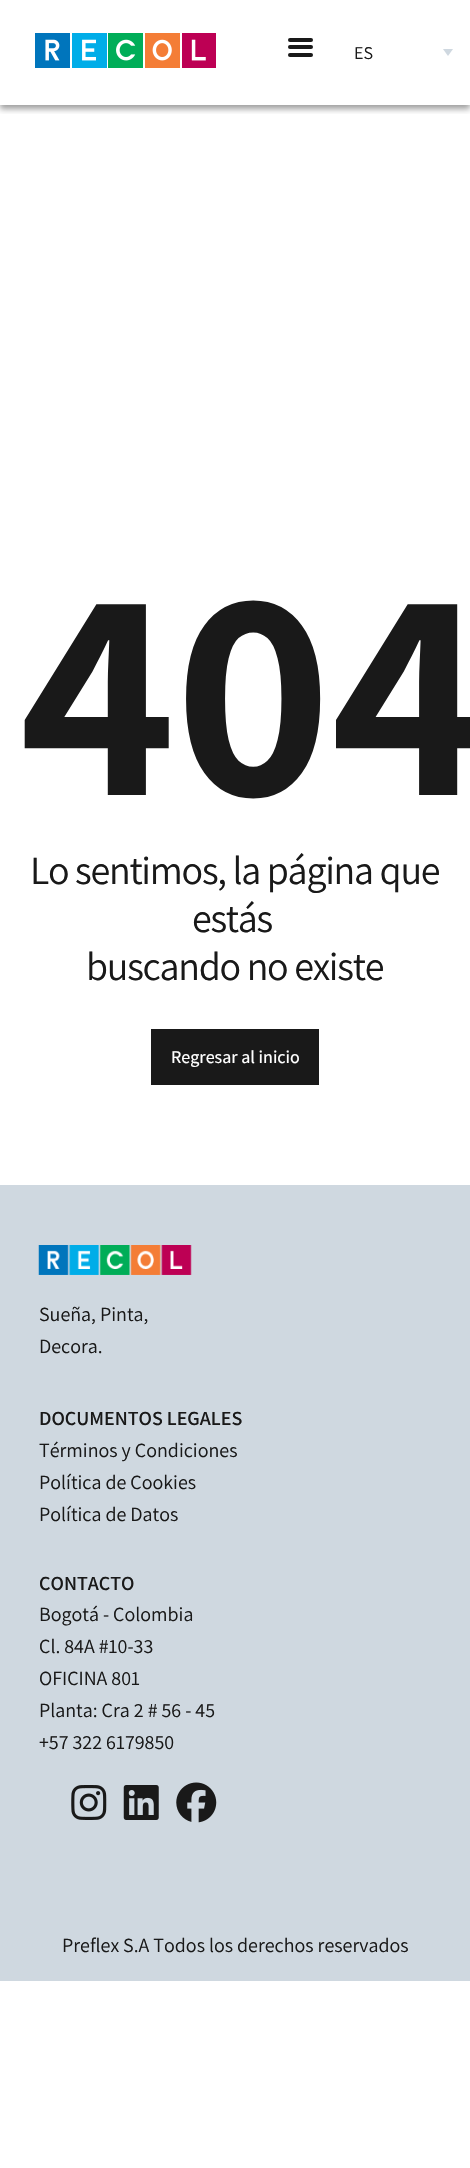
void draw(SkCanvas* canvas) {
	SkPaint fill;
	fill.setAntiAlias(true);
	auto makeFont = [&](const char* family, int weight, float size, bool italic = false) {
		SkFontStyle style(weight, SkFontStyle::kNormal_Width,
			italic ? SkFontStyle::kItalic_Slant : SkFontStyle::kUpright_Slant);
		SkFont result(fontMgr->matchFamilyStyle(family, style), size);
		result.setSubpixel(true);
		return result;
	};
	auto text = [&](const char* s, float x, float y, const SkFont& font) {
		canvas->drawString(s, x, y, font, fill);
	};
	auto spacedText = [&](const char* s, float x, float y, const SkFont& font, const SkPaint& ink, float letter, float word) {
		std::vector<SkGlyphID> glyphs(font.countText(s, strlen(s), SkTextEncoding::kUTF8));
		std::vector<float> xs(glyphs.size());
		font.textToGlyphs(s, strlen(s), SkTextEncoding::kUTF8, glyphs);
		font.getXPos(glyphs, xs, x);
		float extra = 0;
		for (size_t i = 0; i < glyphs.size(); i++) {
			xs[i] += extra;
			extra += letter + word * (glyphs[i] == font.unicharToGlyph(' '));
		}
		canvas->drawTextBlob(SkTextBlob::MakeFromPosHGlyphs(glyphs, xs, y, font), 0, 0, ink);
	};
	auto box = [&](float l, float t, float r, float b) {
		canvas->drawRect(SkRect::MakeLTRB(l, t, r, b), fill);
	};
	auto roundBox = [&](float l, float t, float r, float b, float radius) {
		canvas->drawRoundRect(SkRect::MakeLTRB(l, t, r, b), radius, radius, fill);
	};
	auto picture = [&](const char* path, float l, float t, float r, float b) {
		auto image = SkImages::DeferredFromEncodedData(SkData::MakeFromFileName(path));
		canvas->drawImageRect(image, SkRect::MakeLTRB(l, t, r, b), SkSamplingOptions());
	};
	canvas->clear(0xFFFFFFFF);
	canvas->save();
	canvas->clipRect(SkRect::MakeLTRB(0, 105, 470, 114));
	fill.setColor(0x61000000);
	fill.setMaskFilter(SkMaskFilter::MakeBlur(kNormal_SkBlurStyle, 3));
	canvas->drawRect(SkRect::MakeLTRB(0, 4, 470, 109), fill);
	fill.setMaskFilter(nullptr);
	canvas->restore();
	picture("image0.png", 35, 33, 216, 68);
	fill.setColor(0xFF191919);
	roundBox(288, 38, 313, 42, 2);
	roundBox(288, 45, 313, 49, 2);
	roundBox(288, 53, 313, 57, 2);
	fill.setColor(0xFFCFD8E0);
	canvas->drawPath(SkPathBuilder().moveTo(443, 49).lineTo(453, 49).lineTo(448, 56).close().detach(), fill);
	fill.setColor(0xFF191919);
	box(151, 1029, 319, 1085);
	fill.setColor(0xFFCFD8E0);
	box(0, 1185, 470, 1981);
	picture("image1.png", 38, 1245, 192, 1275);
	picture("image2.png", 71, 1785, 107, 1820);
	picture("image3.png", 123, 1785, 159, 1820);
	picture("image4.png", 176, 1782, 217, 1823);
	auto font1 = makeFont("Assistant", 400, 18);
	fill.setColor(0xFF191919);
	text("ES", 354, 59, font1);
	auto font2 = makeFont("Assistant", 700, 300);
	spacedText("404", 19, 795, font2, fill, -1.25f, 0);
	auto font3 = makeFont("Assistant", 400, 40);
	spacedText("Lo sentimos, la página que", 30, 884, font3, fill, -1.25f, 0);
	spacedText("estás", 192, 932, font3, fill, -1.25f, 0);
	spacedText("buscando no existe", 86, 980, font3, fill, -1.25f, 0);
	auto font4 = makeFont("Assistant", 500, 18);
	fill.setColor(0xFFFFFFFF);
	text("Regresar al inicio", 171, 1063, font4);
	auto font5 = makeFont("Assistant", 400, 20);
	fill.setColor(0xFF191919);
	text("Sueña, Pinta,", 39, 1321, font5);
	text("Decora.", 39, 1353, font5);
	auto font6 = makeFont("Assistant", 600, 20);
	text("DOCUMENTOS LEGALES", 39, 1425, font6);
	text("Términos y Condiciones", 39, 1457, font5);
	text("Política de Cookies", 39, 1489, font5);
	text("Política de Datos", 39, 1521, font5);
	text("CONTACTO", 39, 1590, font6);
	text("Bogotá - Colombia", 39, 1621, font5);
	text("Cl. 84A #10-33", 39, 1653, font5);
	text("OFICINA 801", 39, 1685, font5);
	text("Planta: Cra 2 # 56 - 45", 39, 1717, font5);
	text("+57 322 6179850", 39, 1749, font5);
	text("Preflex S.A Todos los derechos reservados", 62, 1952, font5);
}
